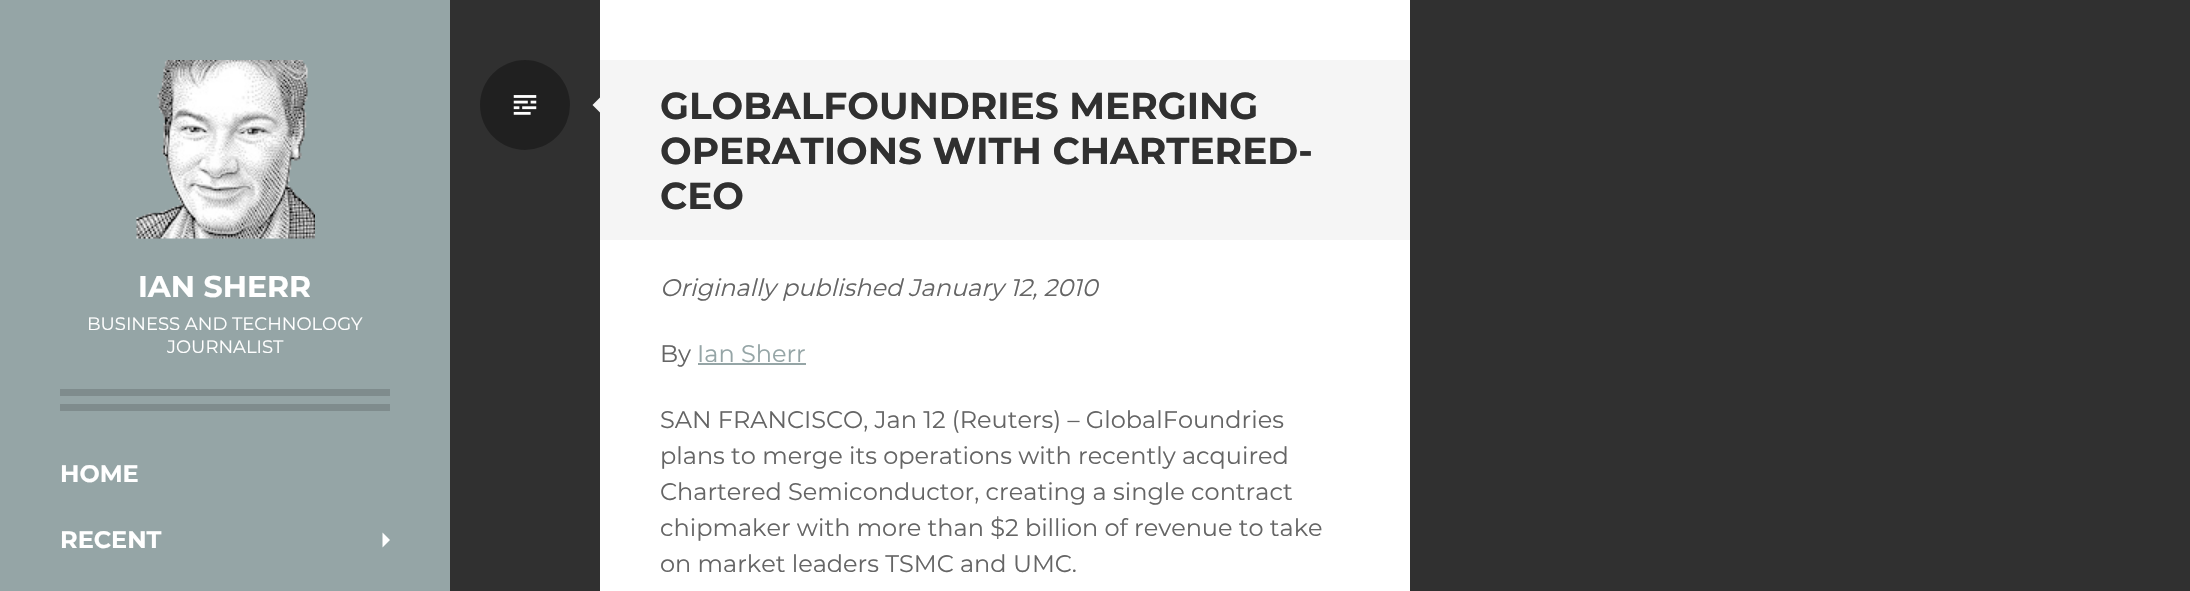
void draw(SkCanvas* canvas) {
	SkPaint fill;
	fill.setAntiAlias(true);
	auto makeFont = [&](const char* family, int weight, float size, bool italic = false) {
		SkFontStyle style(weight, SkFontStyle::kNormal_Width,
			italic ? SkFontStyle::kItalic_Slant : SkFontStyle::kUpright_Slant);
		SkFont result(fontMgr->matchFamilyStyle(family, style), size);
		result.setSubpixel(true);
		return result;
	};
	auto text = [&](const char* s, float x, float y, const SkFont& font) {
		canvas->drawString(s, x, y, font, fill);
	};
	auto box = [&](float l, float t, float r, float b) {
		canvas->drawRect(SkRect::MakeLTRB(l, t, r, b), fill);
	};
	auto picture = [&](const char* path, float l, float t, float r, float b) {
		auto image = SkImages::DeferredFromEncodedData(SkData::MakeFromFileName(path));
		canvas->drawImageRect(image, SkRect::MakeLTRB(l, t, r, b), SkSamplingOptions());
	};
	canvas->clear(0xFF303030);
	fill.setColor(0xFF95A5A6);
	box(0, 0, 450, 591);
	fill.setColor(0xFFFFFFFF);
	box(600, 0, 1410, 591);
	picture("image0.png", 136, 60, 315, 239);
	fill.setColor(0xFF7F8C8D);
	box(60, 389, 390, 396);
	box(60, 404, 390, 411);
	fill.setColor(0xFFFFFFFF);
	canvas->drawPath(SkPathBuilder().moveTo(382.5f, 547.5f).lineTo(382.5f, 532.5f).lineTo(390, 540).close().detach(), fill);
	fill.setColor(0xFF202020);
	canvas->drawCircle(525, 105, 45, fill);
	picture("image1.png", 513, 95, 537, 115);
	fill.setColor(0xFFF5F5F5);
	box(600, 60, 1410, 240);
	canvas->drawPath(SkPathBuilder().moveTo(600, 97.5f).lineTo(600, 112.5f).lineTo(592.5f, 105).close().detach(), fill);
	fill.setColor(0xFF95A5A6);
	box(698, 363, 806, 365);
	auto font1 = makeFont("Montserrat", 700, 30);
	fill.setColor(0xFFFFFFFF);
	text("IAN SHERR", 138, 297, font1);
	auto font2 = makeFont("Montserrat", 400, 18);
	text("BUSINESS AND TECHNOLOGY", 87, 330, font2);
	text("JOURNALIST", 167, 353, font2);
	auto font3 = makeFont("Montserrat", 700, 24);
	text("HOME", 60, 482, font3);
	text("RECENT", 60, 548, font3);
	auto font4 = makeFont("Montserrat", 700, 37.5f);
	fill.setColor(0xFF303030);
	text("GLOBALFOUNDRIES MERGING", 660, 119, font4);
	text("OPERATIONS WITH CHARTERED-", 660, 164, font4);
	text("CEO", 660, 209, font4);
	auto font5 = makeFont("Montserrat", 400, 24, true);
	fill.setColor(0xFF656565);
	text("Originally published January 12, 2010", 660, 296, font5);
	auto font6 = makeFont("Montserrat", 400, 24);
	text("By", 660, 362, font6);
	fill.setColor(0xFF95A5A6);
	text("Ian Sherr", 697, 362, font6);
	fill.setColor(0xFF656565);
	text("SAN FRANCISCO, Jan 12 (Reuters) – GlobalFoundries", 660, 428, font6);
	text("plans to merge its operations with recently acquired", 660, 464, font6);
	text("Chartered Semiconductor, creating a single contract", 660, 500, font6);
	text("chipmaker with more than $2 billion of revenue to take", 660, 536, font6);
	text("on market leaders TSMC and UMC.", 660, 572, font6);
}
